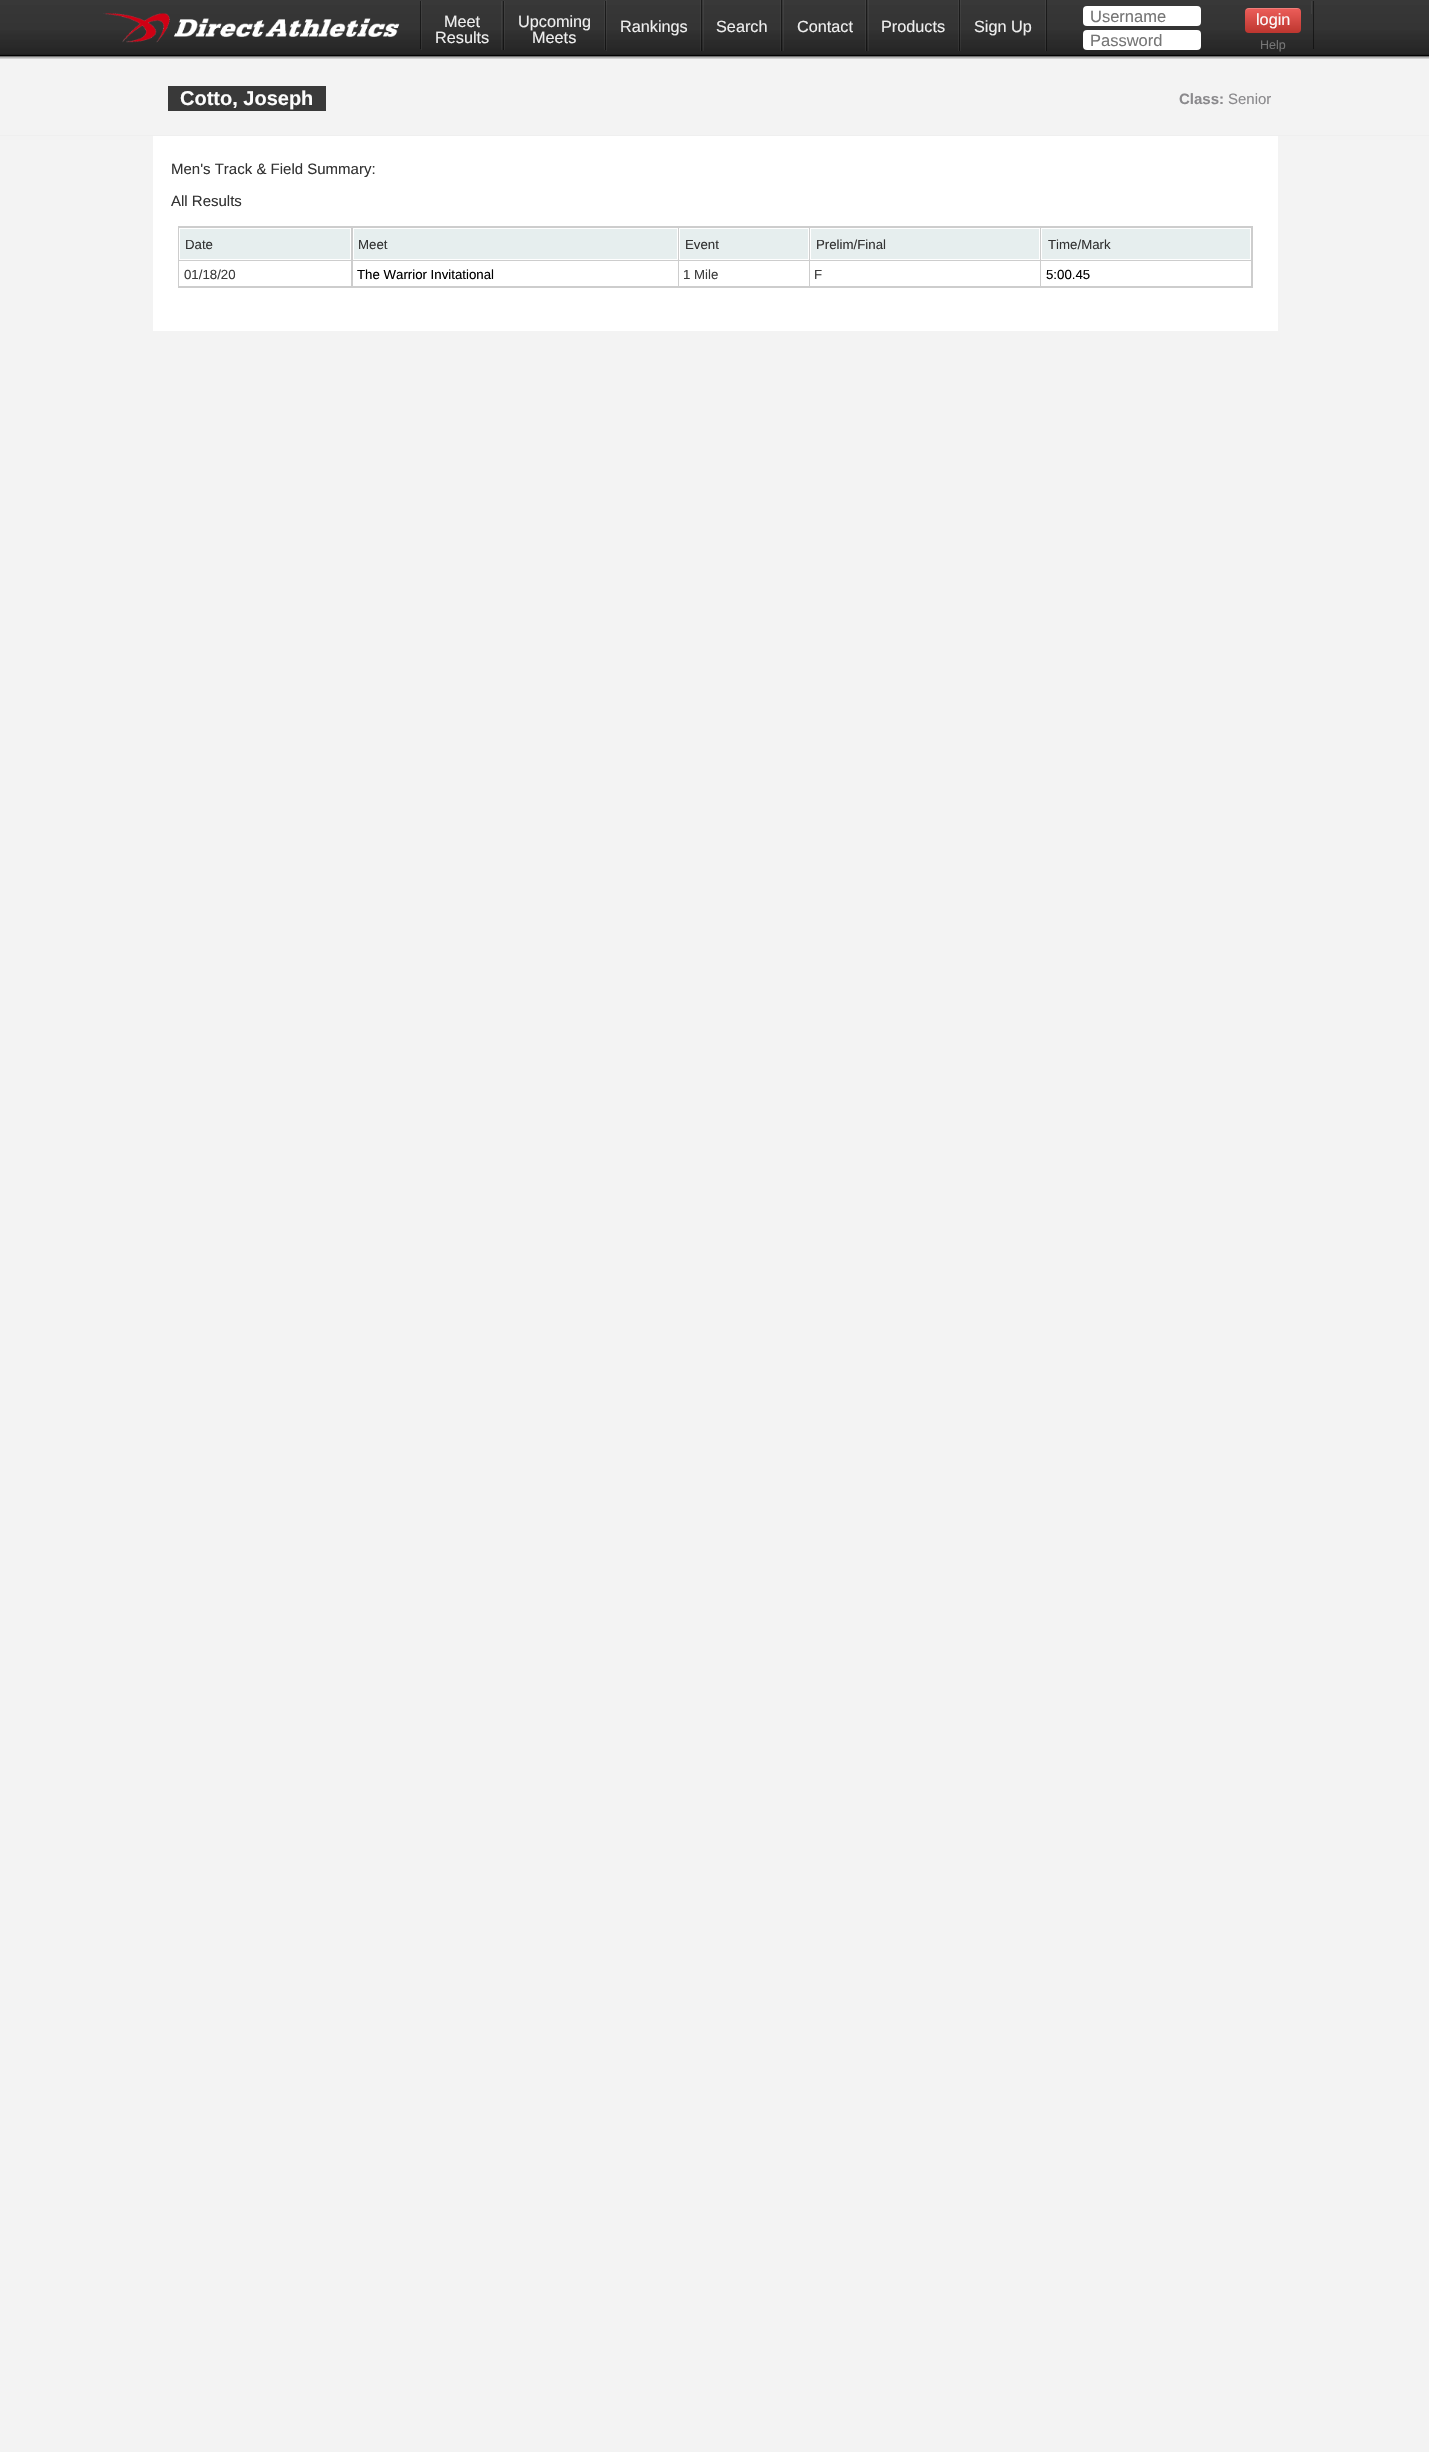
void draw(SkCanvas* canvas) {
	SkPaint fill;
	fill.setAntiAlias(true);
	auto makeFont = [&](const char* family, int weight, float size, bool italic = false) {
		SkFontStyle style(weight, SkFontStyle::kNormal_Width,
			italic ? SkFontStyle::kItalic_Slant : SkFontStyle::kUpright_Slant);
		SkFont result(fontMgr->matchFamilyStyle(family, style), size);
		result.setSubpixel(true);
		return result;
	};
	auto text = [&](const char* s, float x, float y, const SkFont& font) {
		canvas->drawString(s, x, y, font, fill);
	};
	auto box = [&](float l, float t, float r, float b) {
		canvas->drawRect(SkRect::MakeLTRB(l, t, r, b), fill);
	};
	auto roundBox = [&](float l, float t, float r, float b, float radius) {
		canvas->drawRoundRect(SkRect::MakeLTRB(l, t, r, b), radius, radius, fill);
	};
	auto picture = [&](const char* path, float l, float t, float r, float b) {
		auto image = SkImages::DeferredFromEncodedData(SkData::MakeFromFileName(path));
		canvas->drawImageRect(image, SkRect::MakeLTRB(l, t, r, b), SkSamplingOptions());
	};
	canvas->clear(0xFFF3F3F3);
	picture("image0.png", 0, 0, 1429, 59);
	picture("image1.png", 103, 13, 400, 43);
	fill.setColor(0x80000000);
	box(420, 1, 421, 49);
	box(503, 1, 504, 50);
	fill.setColor(0x0DFFFFFF);
	box(501, 1, 502, 50);
	box(421, 1, 422, 50);
	fill.setColor(0x80000000);
	box(605, 1, 606, 50);
	fill.setColor(0x0DFFFFFF);
	box(604, 1, 605, 50);
	box(504, 1, 505, 50);
	fill.setColor(0x80000000);
	box(701, 0, 702, 51);
	fill.setColor(0x0DFFFFFF);
	box(700, 0, 701, 51);
	box(606, 0, 607, 51);
	fill.setColor(0x80000000);
	box(781, 0, 782, 51);
	fill.setColor(0x0DFFFFFF);
	box(780, 0, 781, 51);
	box(703, 0, 704, 51);
	fill.setColor(0x80000000);
	box(866, 0, 867, 51);
	fill.setColor(0x0DFFFFFF);
	box(865, 0, 866, 51);
	box(783, 0, 784, 51);
	fill.setColor(0x80000000);
	box(959, 0, 960, 51);
	fill.setColor(0x0DFFFFFF);
	box(958, 0, 959, 51);
	box(868, 0, 869, 51);
	fill.setColor(0x80000000);
	box(1046, 0, 1047, 51);
	fill.setColor(0x0DFFFFFF);
	box(1045, 0, 1046, 51);
	box(960, 0, 961, 51);
	fill.setColor(0x80000000);
	box(1313, 1, 1314, 49);
	fill.setColor(0xFF414141);
	box(1311, 1, 1312, 14);
	fill.setColor(0xFFFFFFFF);
	roundBox(1083, 6, 1201, 26, 4);
	{
		const SkColor colors[] = {0xFFEE5F5B, 0xFFBD362F};
		const float stops[] = {0, 1};
		const SkPoint ends[] = {{1273, 7.5f}, {1273, 33}};
		fill.setShader(SkGradientShader::MakeLinear(ends, colors, stops, 2, SkTileMode::kClamp));
		fill.setAlpha(255);
	}
	roundBox(1245, 8, 1301, 33, 4);
	fill.setShader(nullptr);
	fill.setColor(0x33FFFFFF);
	canvas->drawPath(SkPathBuilder().moveTo(1249, 9).lineTo(1299, 9).lineTo(1300, 10).cubicTo(1300, 9, 1298, 8, 1297, 8).lineTo(1249, 8).cubicTo(1247, 8, 1245, 10, 1245, 12).cubicTo(1245, 10, 1247, 9, 1249, 9).close().detach(), fill);
	fill.setColor(0xFFFFFFFF);
	roundBox(1083, 30, 1201, 50, 4);
	fill.setColor(0xFFEFEFEF);
	box(0, 135, 1429, 136);
	fill.setColor(0xFF393939);
	box(168, 86, 326, 111);
	fill.setColor(0xFFFFFFFF);
	box(153, 136, 1278, 331);
	fill.setColor(0xFFCDCDCD);
	box(178, 226, 1253, 288);
	fill.setColor(0xFFE6EEEE);
	canvas->drawRect(SkRect::MakeLTRB(179.5f, 228.5f, 350.5f, 259.5f), fill);
	fill.setStyle(SkPaint::kStroke_Style);
	fill.setStrokeWidth(1);
	fill.setColor(0xFFFFFFFF);
	canvas->drawRect(SkRect::MakeLTRB(179.5f, 228.5f, 350.5f, 259.5f), fill);
	fill.setStyle(SkPaint::kFill_Style);
	fill.setColor(0xFFE6EEEE);
	canvas->drawRect(SkRect::MakeLTRB(353.5f, 228.5f, 677.5f, 259.5f), fill);
	fill.setStyle(SkPaint::kStroke_Style);
	fill.setColor(0xFFFFFFFF);
	canvas->drawRect(SkRect::MakeLTRB(353.5f, 228.5f, 677.5f, 259.5f), fill);
	fill.setStyle(SkPaint::kFill_Style);
	fill.setColor(0xFFE6EEEE);
	canvas->drawRect(SkRect::MakeLTRB(679.5f, 228.5f, 808.5f, 259.5f), fill);
	fill.setStyle(SkPaint::kStroke_Style);
	fill.setColor(0xFFFFFFFF);
	canvas->drawRect(SkRect::MakeLTRB(679.5f, 228.5f, 808.5f, 259.5f), fill);
	fill.setStyle(SkPaint::kFill_Style);
	fill.setColor(0xFFE6EEEE);
	canvas->drawRect(SkRect::MakeLTRB(810.5f, 228.5f, 1039.5f, 259.5f), fill);
	fill.setStyle(SkPaint::kStroke_Style);
	fill.setColor(0xFFFFFFFF);
	canvas->drawRect(SkRect::MakeLTRB(810.5f, 228.5f, 1039.5f, 259.5f), fill);
	fill.setStyle(SkPaint::kFill_Style);
	fill.setColor(0xFFE6EEEE);
	canvas->drawRect(SkRect::MakeLTRB(1041.5f, 228.5f, 1250.5f, 259.5f), fill);
	fill.setStyle(SkPaint::kStroke_Style);
	fill.setColor(0xFFFFFFFF);
	canvas->drawRect(SkRect::MakeLTRB(1041.5f, 228.5f, 1250.5f, 259.5f), fill);
	fill.setStyle(SkPaint::kFill_Style);
	box(179, 261, 351, 286);
	box(353, 261, 678, 286);
	box(679, 261, 809, 286);
	box(810, 261, 1040, 286);
	box(1041, 261, 1251, 286);
	auto font1 = makeFont("Liberation Sans", 400, 16.25f);
	fill.setColor(0xFFEEEEEE);
	text("Meet", 444, 27, font1);
	text("Results", 435, 43, font1);
	text("Upcoming", 518, 27, font1);
	text("Meets", 532, 43, font1);
	text("Rankings", 620, 32, font1);
	text("Search", 716, 32, font1);
	text("Contact", 797, 32, font1);
	text("Products", 881, 32, font1);
	text("Sign Up", 974, 32, font1);
	auto font2 = makeFont("Liberation Sans", 400, 16.5f);
	fill.setColor(0xFF757575);
	text("Username", 1090, 22, font2);
	fill.setColor(0xFFFCFCFC);
	text("login", 1256, 25, font1);
	fill.setColor(0xFF757575);
	text("Password", 1090, 46, font2);
	auto font3 = makeFont("Liberation Sans", 400, 12.5f);
	text("Help", 1260, 49, font3);
	auto font4 = makeFont("Liberation Sans", 700, 20);
	fill.setColor(0xFFFCFCFC);
	text("Cotto, Joseph", 180, 105, font4);
	auto font5 = makeFont("Liberation Sans", 700, 15);
	fill.setColor(0xFF8A898C);
	text("Class:", 1179, 104, font5);
	auto font6 = makeFont("Liberation Sans", 400, 15);
	text("Senior", 1228, 104, font6);
	fill.setColor(0xFF333333);
	text("Men's Track & Field Summary:", 171, 174, font6);
	text("All Results", 171, 206, font6);
	auto font7 = makeFont("Liberation Sans", 400, 13.25f);
	text("Date", 185, 249, font7);
	text("Meet", 358, 249, font7);
	text("Event", 685, 249, font7);
	text("Prelim/Final", 816, 249, font7);
	text("Time/Mark", 1048, 249, font7);
	fill.setColor(0xFF3D3D3D);
	text("01/18/20", 184, 279, font7);
	fill.setColor(0xFF000000);
	text("The Warrior Invitational", 357, 279, font7);
	fill.setColor(0xFF3D3D3D);
	text("1 Mile", 683, 279, font7);
	text("F", 814, 279, font7);
	fill.setColor(0xFF000000);
	text("5:00.45", 1046, 279, font7);
}
